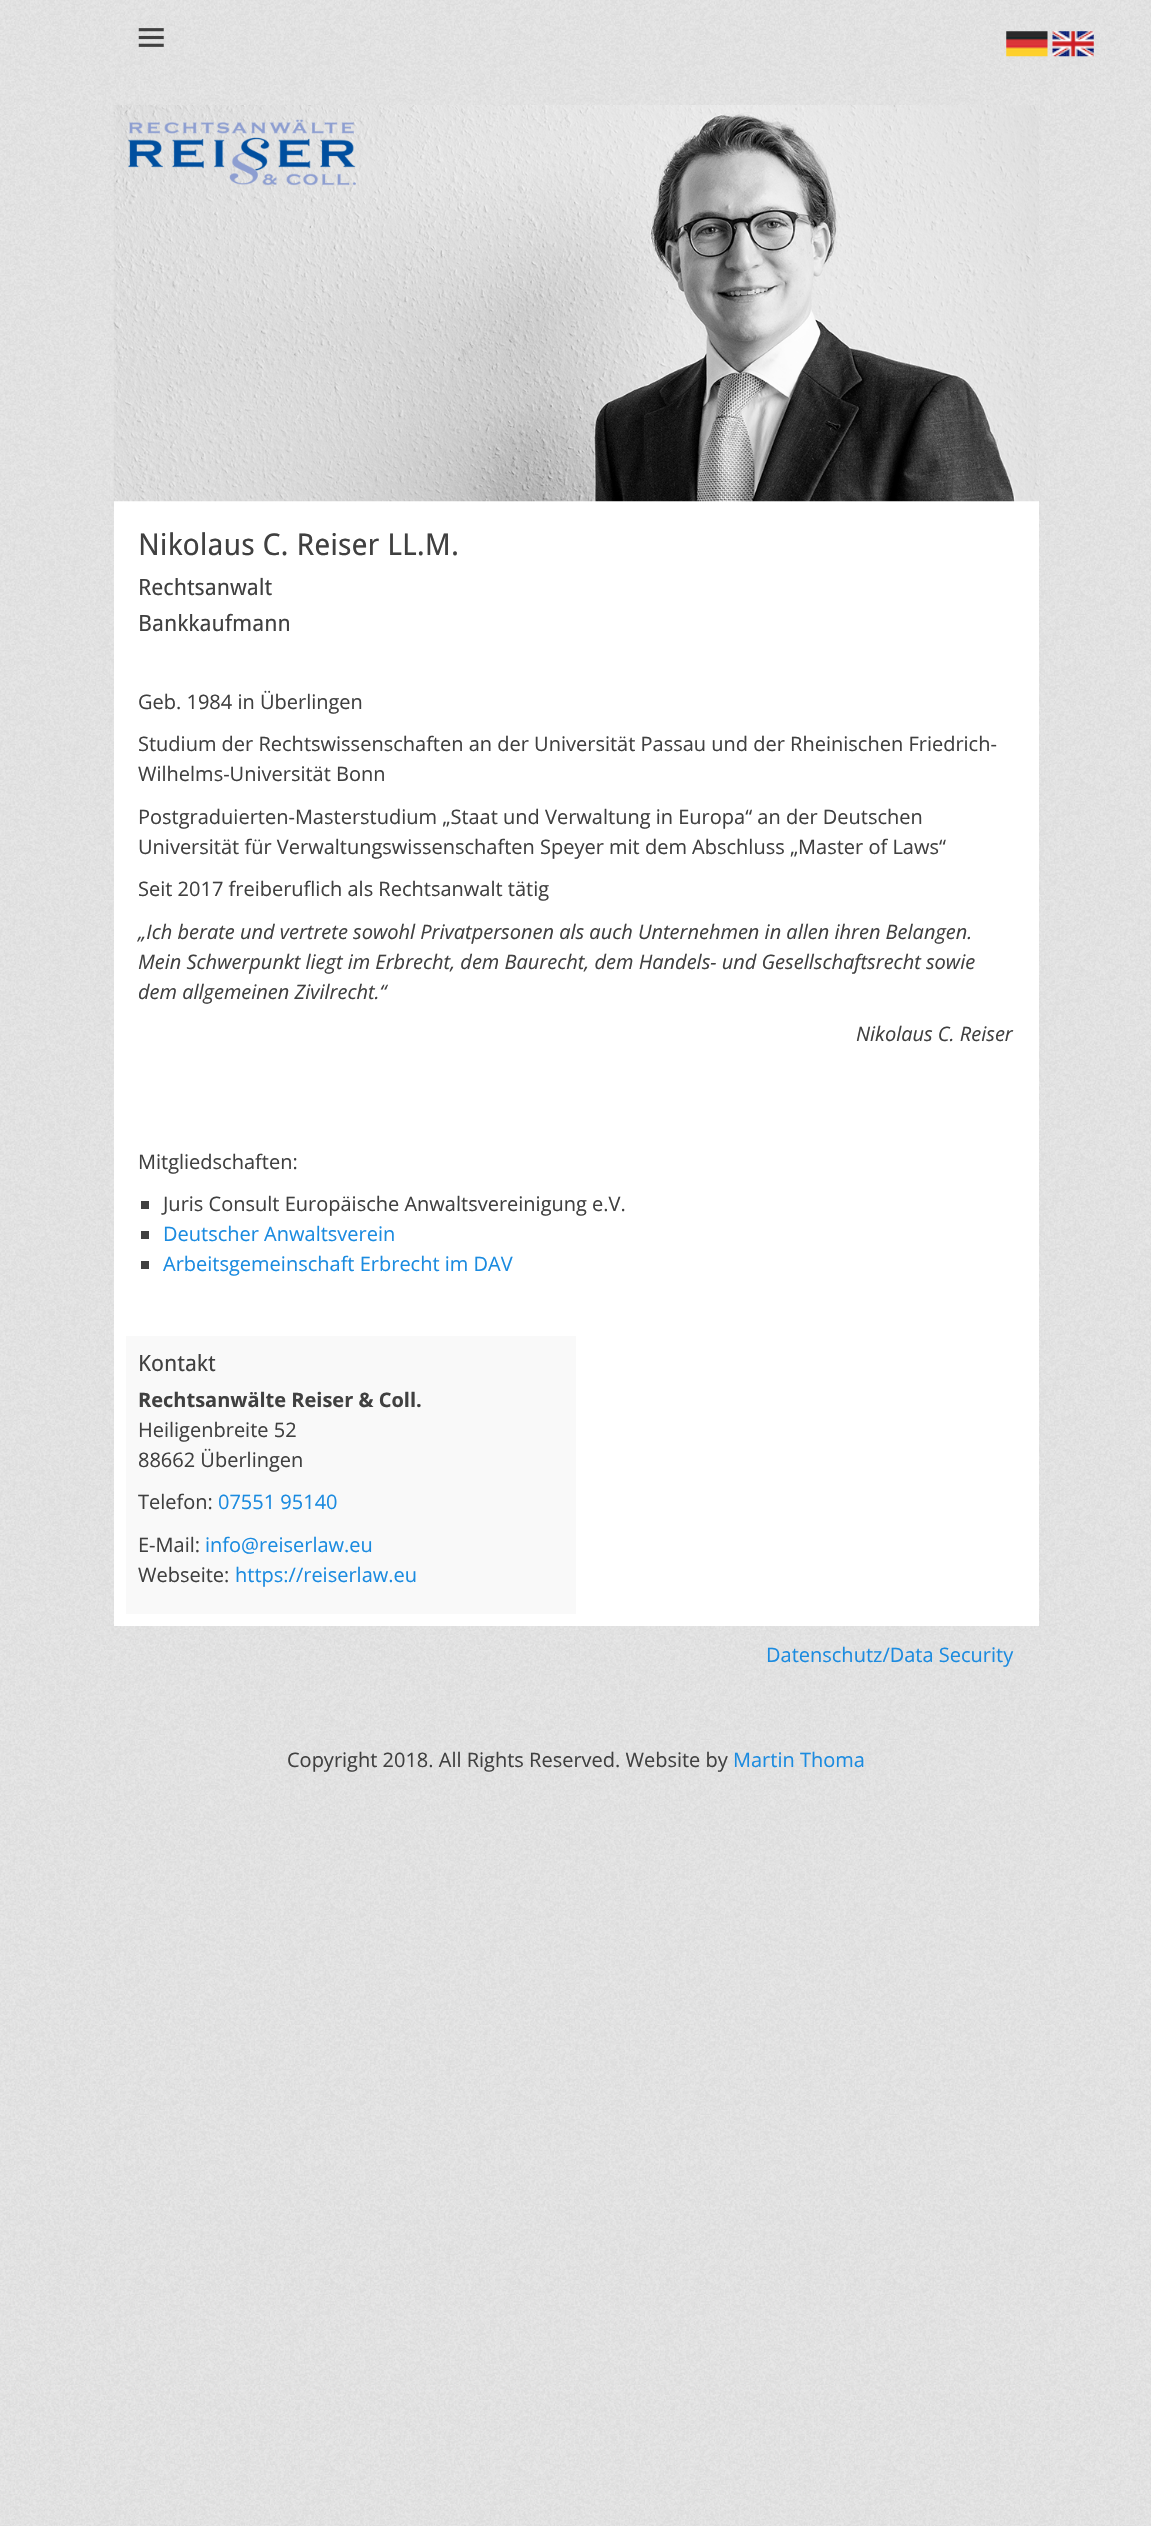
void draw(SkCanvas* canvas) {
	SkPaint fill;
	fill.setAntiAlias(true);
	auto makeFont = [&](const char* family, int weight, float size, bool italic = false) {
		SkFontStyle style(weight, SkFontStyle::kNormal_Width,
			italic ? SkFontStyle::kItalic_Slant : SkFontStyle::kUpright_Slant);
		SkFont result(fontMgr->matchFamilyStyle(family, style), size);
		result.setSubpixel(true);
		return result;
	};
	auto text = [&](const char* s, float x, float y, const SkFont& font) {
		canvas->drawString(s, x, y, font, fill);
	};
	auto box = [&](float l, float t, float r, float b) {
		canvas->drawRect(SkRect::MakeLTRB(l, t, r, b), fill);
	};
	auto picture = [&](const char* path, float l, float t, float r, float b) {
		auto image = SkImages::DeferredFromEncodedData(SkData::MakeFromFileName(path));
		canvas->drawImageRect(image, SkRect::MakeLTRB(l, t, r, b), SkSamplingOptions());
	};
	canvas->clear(0xFFFFFFFF);
	picture("image0.png", 0, 0, 1151, 2526);
	picture("image1.png", 138, 28, 164, 47);
	fill.setColor(0xFFFFFFFF);
	box(114, 501, 1039, 1626);
	picture("image2.png", 113, 105, 1039, 502);
	picture("image3.png", 1006, 31, 1048, 57);
	picture("image4.png", 1052, 31, 1094, 57);
	fill.setColor(0xFF404040);
	box(141, 1201, 149, 1209);
	box(141, 1231, 149, 1239);
	box(141, 1261, 149, 1269);
	fill.setColor(0xFFF9F9F9);
	box(126, 1336, 576, 1614);
	auto font1 = makeFont("Droid Sans", 400, 30);
	fill.setColor(0xFF404040);
	text("Nikolaus C. Reiser LL.M.", 138, 555, font1);
	auto font2 = makeFont("Droid Sans", 400, 22.5f);
	text("Rechtsanwalt", 138, 595, font2);
	text("Bankkaufmann", 138, 631, font2);
	auto font3 = makeFont("Open Sans", 400, 20);
	text("Geb. 1984 in Überlingen", 138, 709, font3);
	text("Studium der Rechtswissenschaften an der Universität Passau und der Rheinischen Friedrich-", 138, 751, font3);
	text("Wilhelms-Universität Bonn", 138, 781, font3);
	text("Postgraduierten-Masterstudium „Staat und Verwaltung in Europa“ an der Deutschen", 138, 824, font3);
	text("Universität für Verwaltungswissenschaften Speyer mit dem Abschluss „Master of Laws“", 138, 854, font3);
	text("Seit 2017 freiberuflich als Rechtsanwalt tätig", 138, 896, font3);
	auto font4 = makeFont("Open Sans", 400, 20, true);
	text("„Ich berate und vertrete sowohl Privatpersonen als auch Unternehmen in allen ihren Belangen.", 138, 939, font4);
	text("Mein Schwerpunkt liegt im Erbrecht, dem Baurecht, dem Handels- und Gesellschaftsrecht sowie", 138, 969, font4);
	text("dem allgemeinen Zivilrecht.“", 138, 999, font4);
	text("Nikolaus C. Reiser", 856, 1041, font4);
	text("Mitgliedschaften:", 138, 1169, font3);
	text("Juris Consult Europäische Anwaltsvereinigung e.V.", 163, 1211, font3);
	fill.setColor(0xFF1B8BE0);
	text("Deutscher Anwaltsverein", 163, 1241, font3);
	text("Arbeitsgemeinschaft Erbrecht im DAV", 163, 1271, font3);
	fill.setColor(0xFF404040);
	text("Kontakt", 138, 1371, font2);
	auto font5 = makeFont("Open Sans", 700, 20);
	text("Rechtsanwälte Reiser & Coll.", 138, 1407, font5);
	text("Heiligenbreite 52", 138, 1437, font3);
	text("88662 Überlingen", 138, 1467, font3);
	text("Telefon:", 138, 1509, font3);
	fill.setColor(0xFF1B8BE0);
	text("07551 95140", 218, 1509, font3);
	fill.setColor(0xFF404040);
	text("E-Mail:", 138, 1552, font3);
	fill.setColor(0xFF1B8BE0);
	text("info@reiserlaw.eu", 205, 1552, font3);
	fill.setColor(0xFF404040);
	text("Webseite:", 138, 1582, font3);
	fill.setColor(0xFF1B8BE0);
	text("https://reiserlaw.eu", 235, 1582, font3);
	text("Datenschutz/Data Security", 766, 1662, font3);
	fill.setColor(0xFF404040);
	text("Copyright 2018. All Rights Reserved. Website by", 287, 1767, font3);
	fill.setColor(0xFF1B8BE0);
	text("Martin Thoma", 733, 1767, font3);
}
